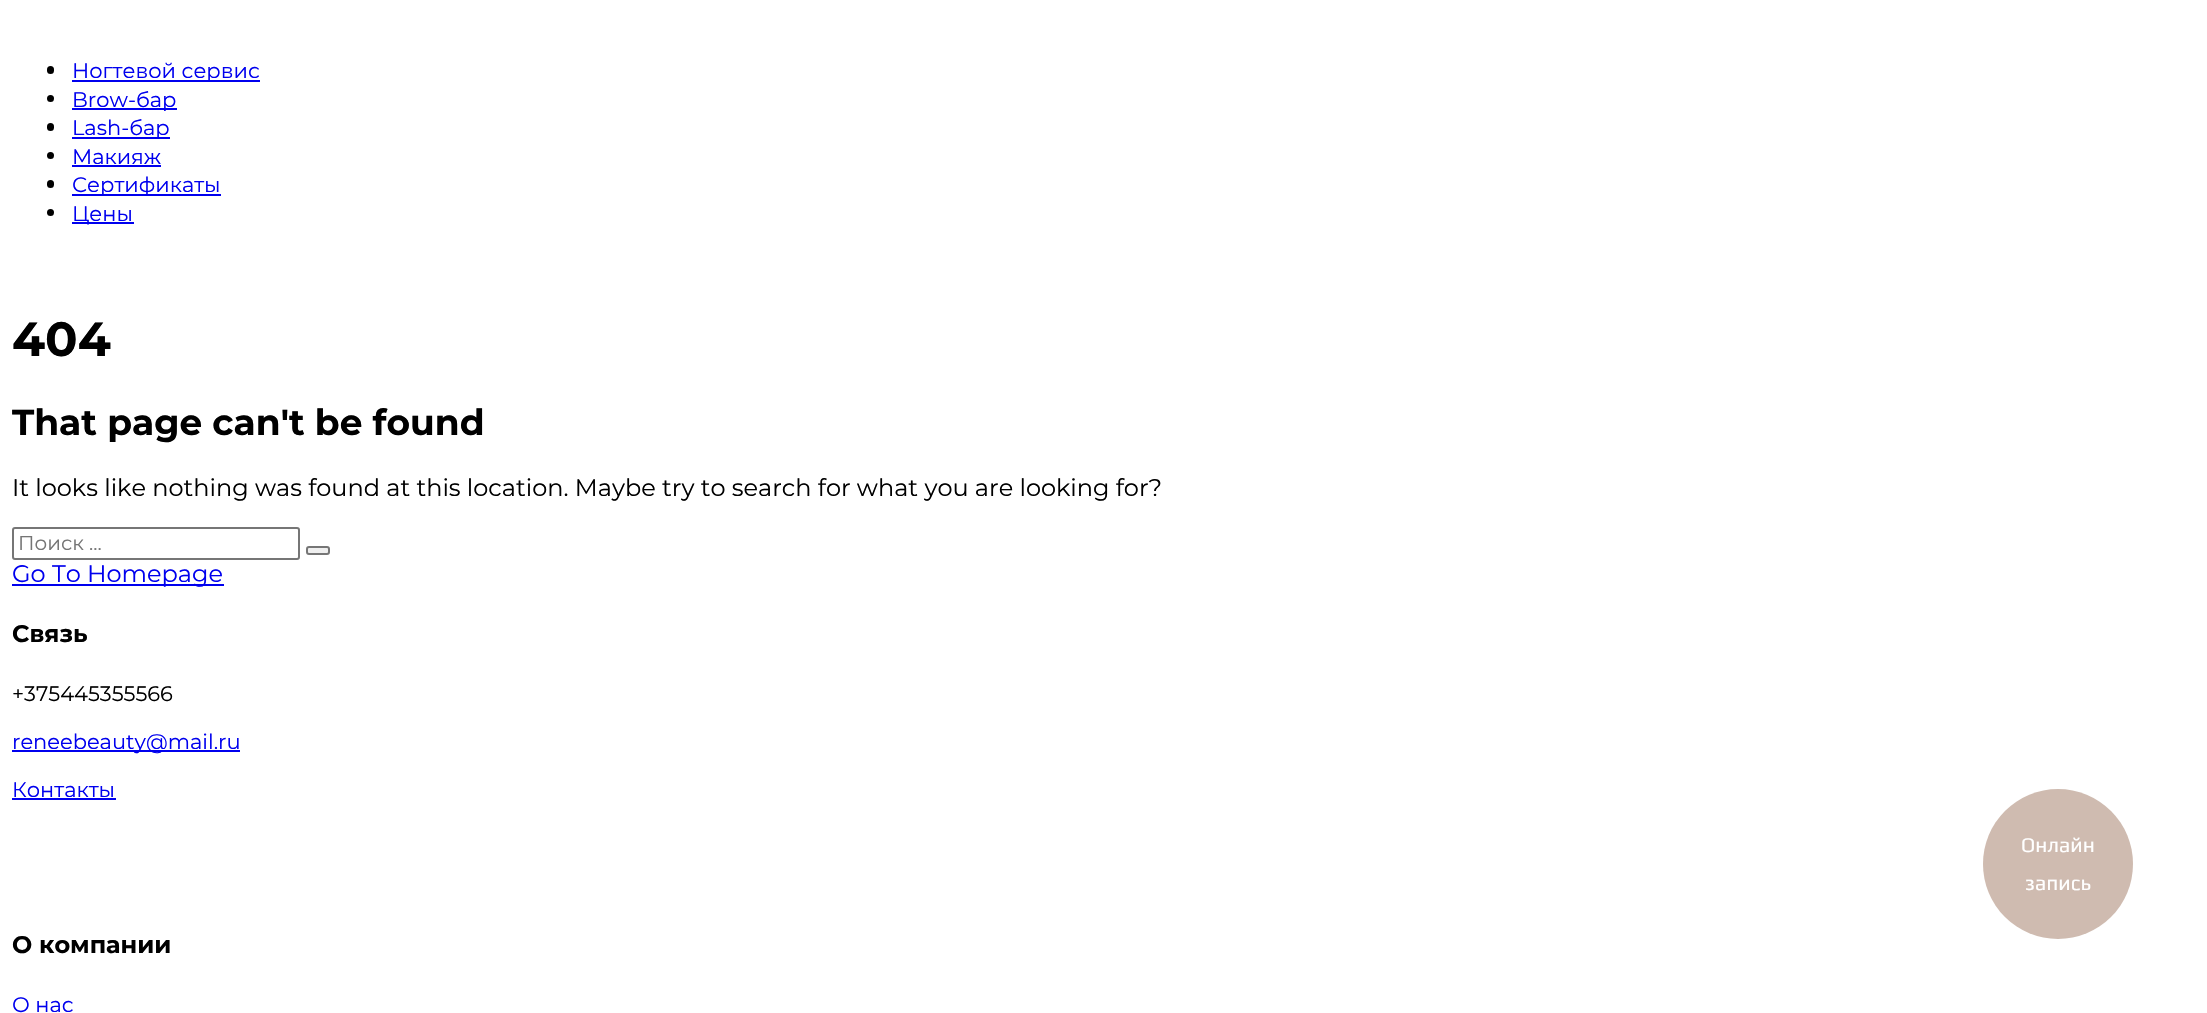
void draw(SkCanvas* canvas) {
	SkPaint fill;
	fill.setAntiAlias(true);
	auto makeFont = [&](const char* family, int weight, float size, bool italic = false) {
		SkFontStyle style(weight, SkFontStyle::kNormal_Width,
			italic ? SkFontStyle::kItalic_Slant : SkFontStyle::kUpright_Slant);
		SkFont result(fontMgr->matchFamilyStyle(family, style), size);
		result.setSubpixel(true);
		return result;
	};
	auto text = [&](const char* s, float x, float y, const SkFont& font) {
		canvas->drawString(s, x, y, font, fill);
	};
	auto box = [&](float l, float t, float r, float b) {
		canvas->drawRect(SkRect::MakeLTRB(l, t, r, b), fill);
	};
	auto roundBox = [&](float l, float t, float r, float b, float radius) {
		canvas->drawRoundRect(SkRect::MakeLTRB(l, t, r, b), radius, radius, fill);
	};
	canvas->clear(0xFFFFFFFF);
	fill.setColor(0xFF000000);
	roundBox(47, 66, 54, 74, 3.5f);
	fill.setColor(0xFF0000EE);
	box(72, 80, 260, 82);
	fill.setColor(0xFF000000);
	canvas->drawCircle(50.5f, 98.5f, 3.5f, fill);
	fill.setColor(0xFF0000EE);
	box(72, 108, 177, 110);
	fill.setColor(0xFF000000);
	roundBox(47, 123, 54, 131, 3.5f);
	fill.setColor(0xFF0000EE);
	box(72, 137, 170, 139);
	fill.setColor(0xFF000000);
	canvas->drawCircle(50.5f, 155.5f, 3.5f, fill);
	fill.setColor(0xFF0000EE);
	box(72, 165, 161, 167);
	fill.setColor(0xFF000000);
	roundBox(47, 180, 54, 188, 3.5f);
	fill.setColor(0xFF0000EE);
	box(72, 194, 221, 196);
	fill.setColor(0xFF000000);
	canvas->drawCircle(50.5f, 212.5f, 3.5f, fill);
	fill.setColor(0xFF0000EE);
	box(72, 222, 134, 224);
	fill.setStyle(SkPaint::kStroke_Style);
	fill.setStrokeWidth(2);
	fill.setColor(0xFF767676);
	canvas->drawRoundRect(SkRect::MakeLTRB(13, 528, 299, 559), 2, 2, fill);
	fill.setStyle(SkPaint::kFill_Style);
	fill.setColor(0xFFEFEFEF);
	canvas->drawRoundRect(SkRect::MakeLTRB(307, 547, 329, 554), 2, 2, fill);
	fill.setStyle(SkPaint::kStroke_Style);
	fill.setColor(0xFF767676);
	canvas->drawRoundRect(SkRect::MakeLTRB(307, 547, 329, 554), 2, 2, fill);
	fill.setStyle(SkPaint::kFill_Style);
	fill.setColor(0xFF0000EE);
	box(12, 584, 224, 586);
	box(12, 750, 240, 752);
	box(12, 798, 116, 800);
	fill.setColor(0xFFCFBBB0);
	canvas->drawCircle(2058, 864, 75, fill);
	auto font1 = makeFont("Montserrat", 400, 21);
	fill.setColor(0xFF0000EE);
	text("Ногтевой сервис", 72, 78, font1);
	text("Brow-бар", 72, 107, font1);
	text("Lash-бар", 72, 135, font1);
	text("Макияж", 72, 164, font1);
	text("Сертификаты", 72, 192, font1);
	text("Цены", 72, 221, font1);
	auto font2 = makeFont("Montserrat", 700, 48);
	fill.setColor(0xFF000000);
	text("404", 12, 356, font2);
	auto font3 = makeFont("Montserrat", 700, 36);
	text("That page can't be found", 12, 435, font3);
	auto font4 = makeFont("Montserrat", 400, 24);
	text("It looks like nothing was found at this location. Maybe try to search for what you are looking for?", 12, 496, font4);
	auto font5 = makeFont("Montserrat", 400, 20);
	fill.setColor(0xFF757575);
	text("Поиск ...", 18, 550, font5);
	fill.setColor(0xFF0000EE);
	text("Go To Homepage", 12, 582, font4);
	auto font6 = makeFont("Montserrat", 700, 24);
	fill.setColor(0xFF000000);
	text("Связь", 12, 642, font6);
	text("+375445355566", 12, 701, font1);
	fill.setColor(0xFF0000EE);
	text("reneebeauty@mail.ru", 12, 749, font1);
	text("Контакты", 12, 797, font1);
	fill.setColor(0xFF000000);
	text("О компании", 12, 953, font6);
	fill.setColor(0xFF0000EE);
	text("О нас", 12, 1012, font1);
	auto font7 = makeFont("Play", 400, 21);
	fill.setColor(0xFFFFFFFF);
	text("Онлайн", 2021, 852, font7);
	text("запись", 2025, 890, font7);
}
